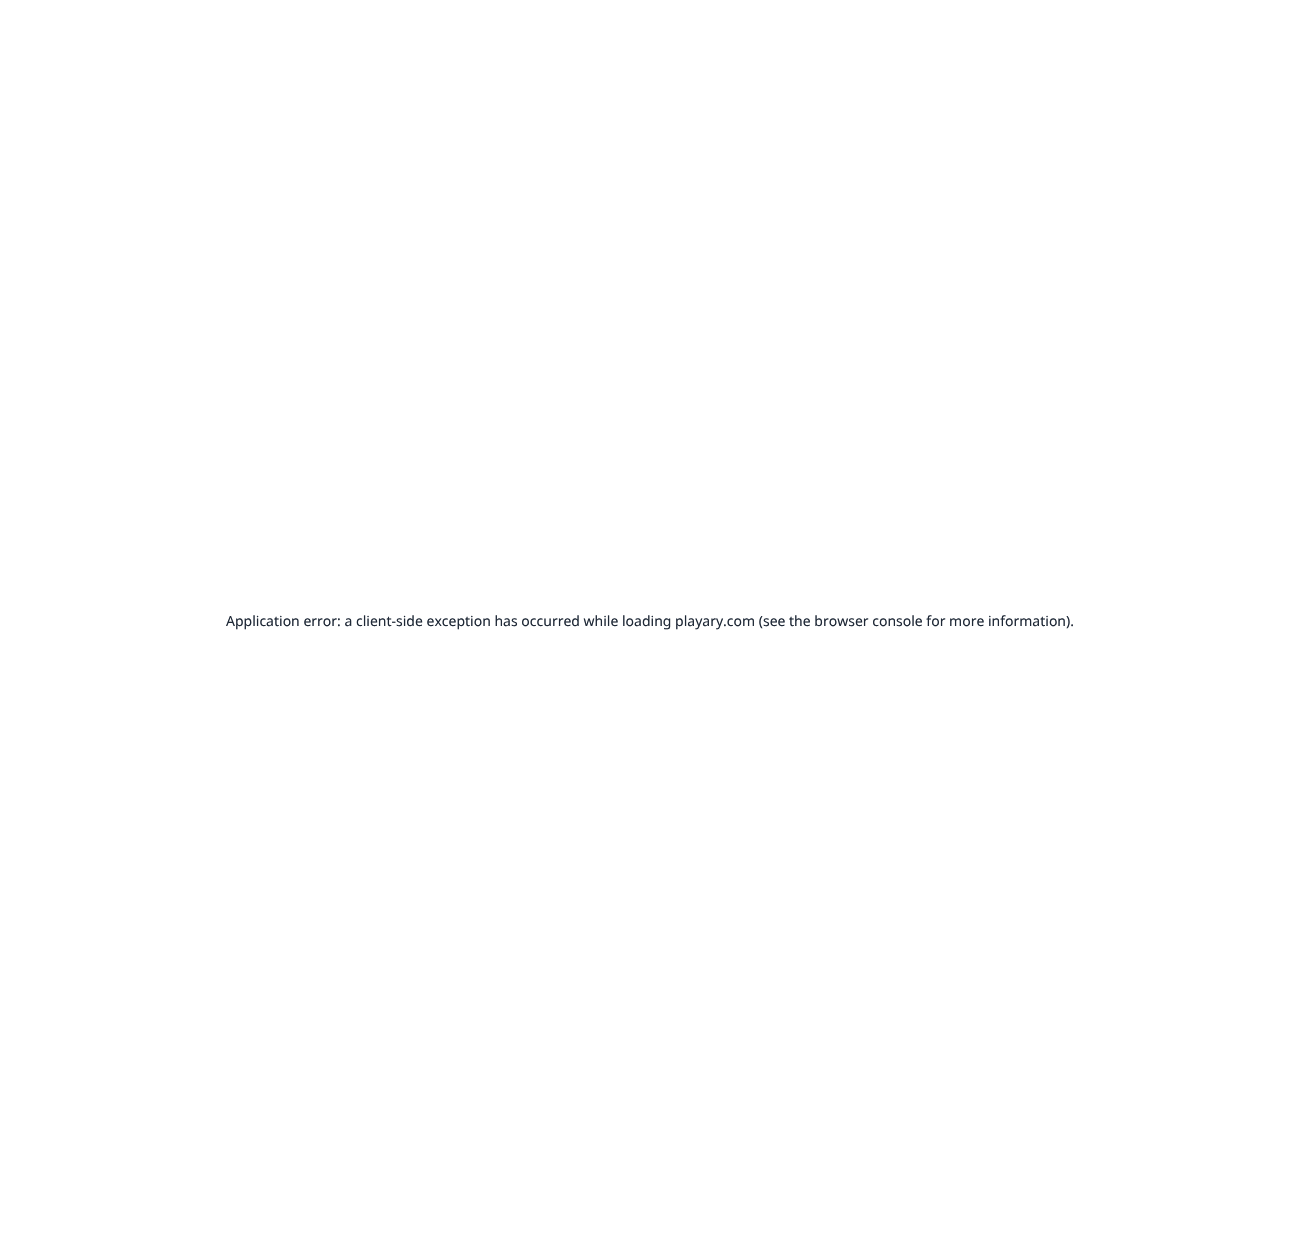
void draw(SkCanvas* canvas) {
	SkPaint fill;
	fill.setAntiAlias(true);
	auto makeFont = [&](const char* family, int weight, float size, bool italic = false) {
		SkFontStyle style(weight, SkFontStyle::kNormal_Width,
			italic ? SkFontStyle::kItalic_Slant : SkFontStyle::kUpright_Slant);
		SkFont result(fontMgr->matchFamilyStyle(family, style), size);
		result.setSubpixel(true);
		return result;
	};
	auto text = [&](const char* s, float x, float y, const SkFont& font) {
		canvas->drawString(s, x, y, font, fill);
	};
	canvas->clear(0xFFFFFFFF);
	auto font1 = makeFont("Noto Sans", 400, 14);
	fill.setColor(0xFF1F2937);
	text("Application error: a client-side exception has occurred while loading playary.com (see the browser console for more information).", 226, 626, font1);
}
